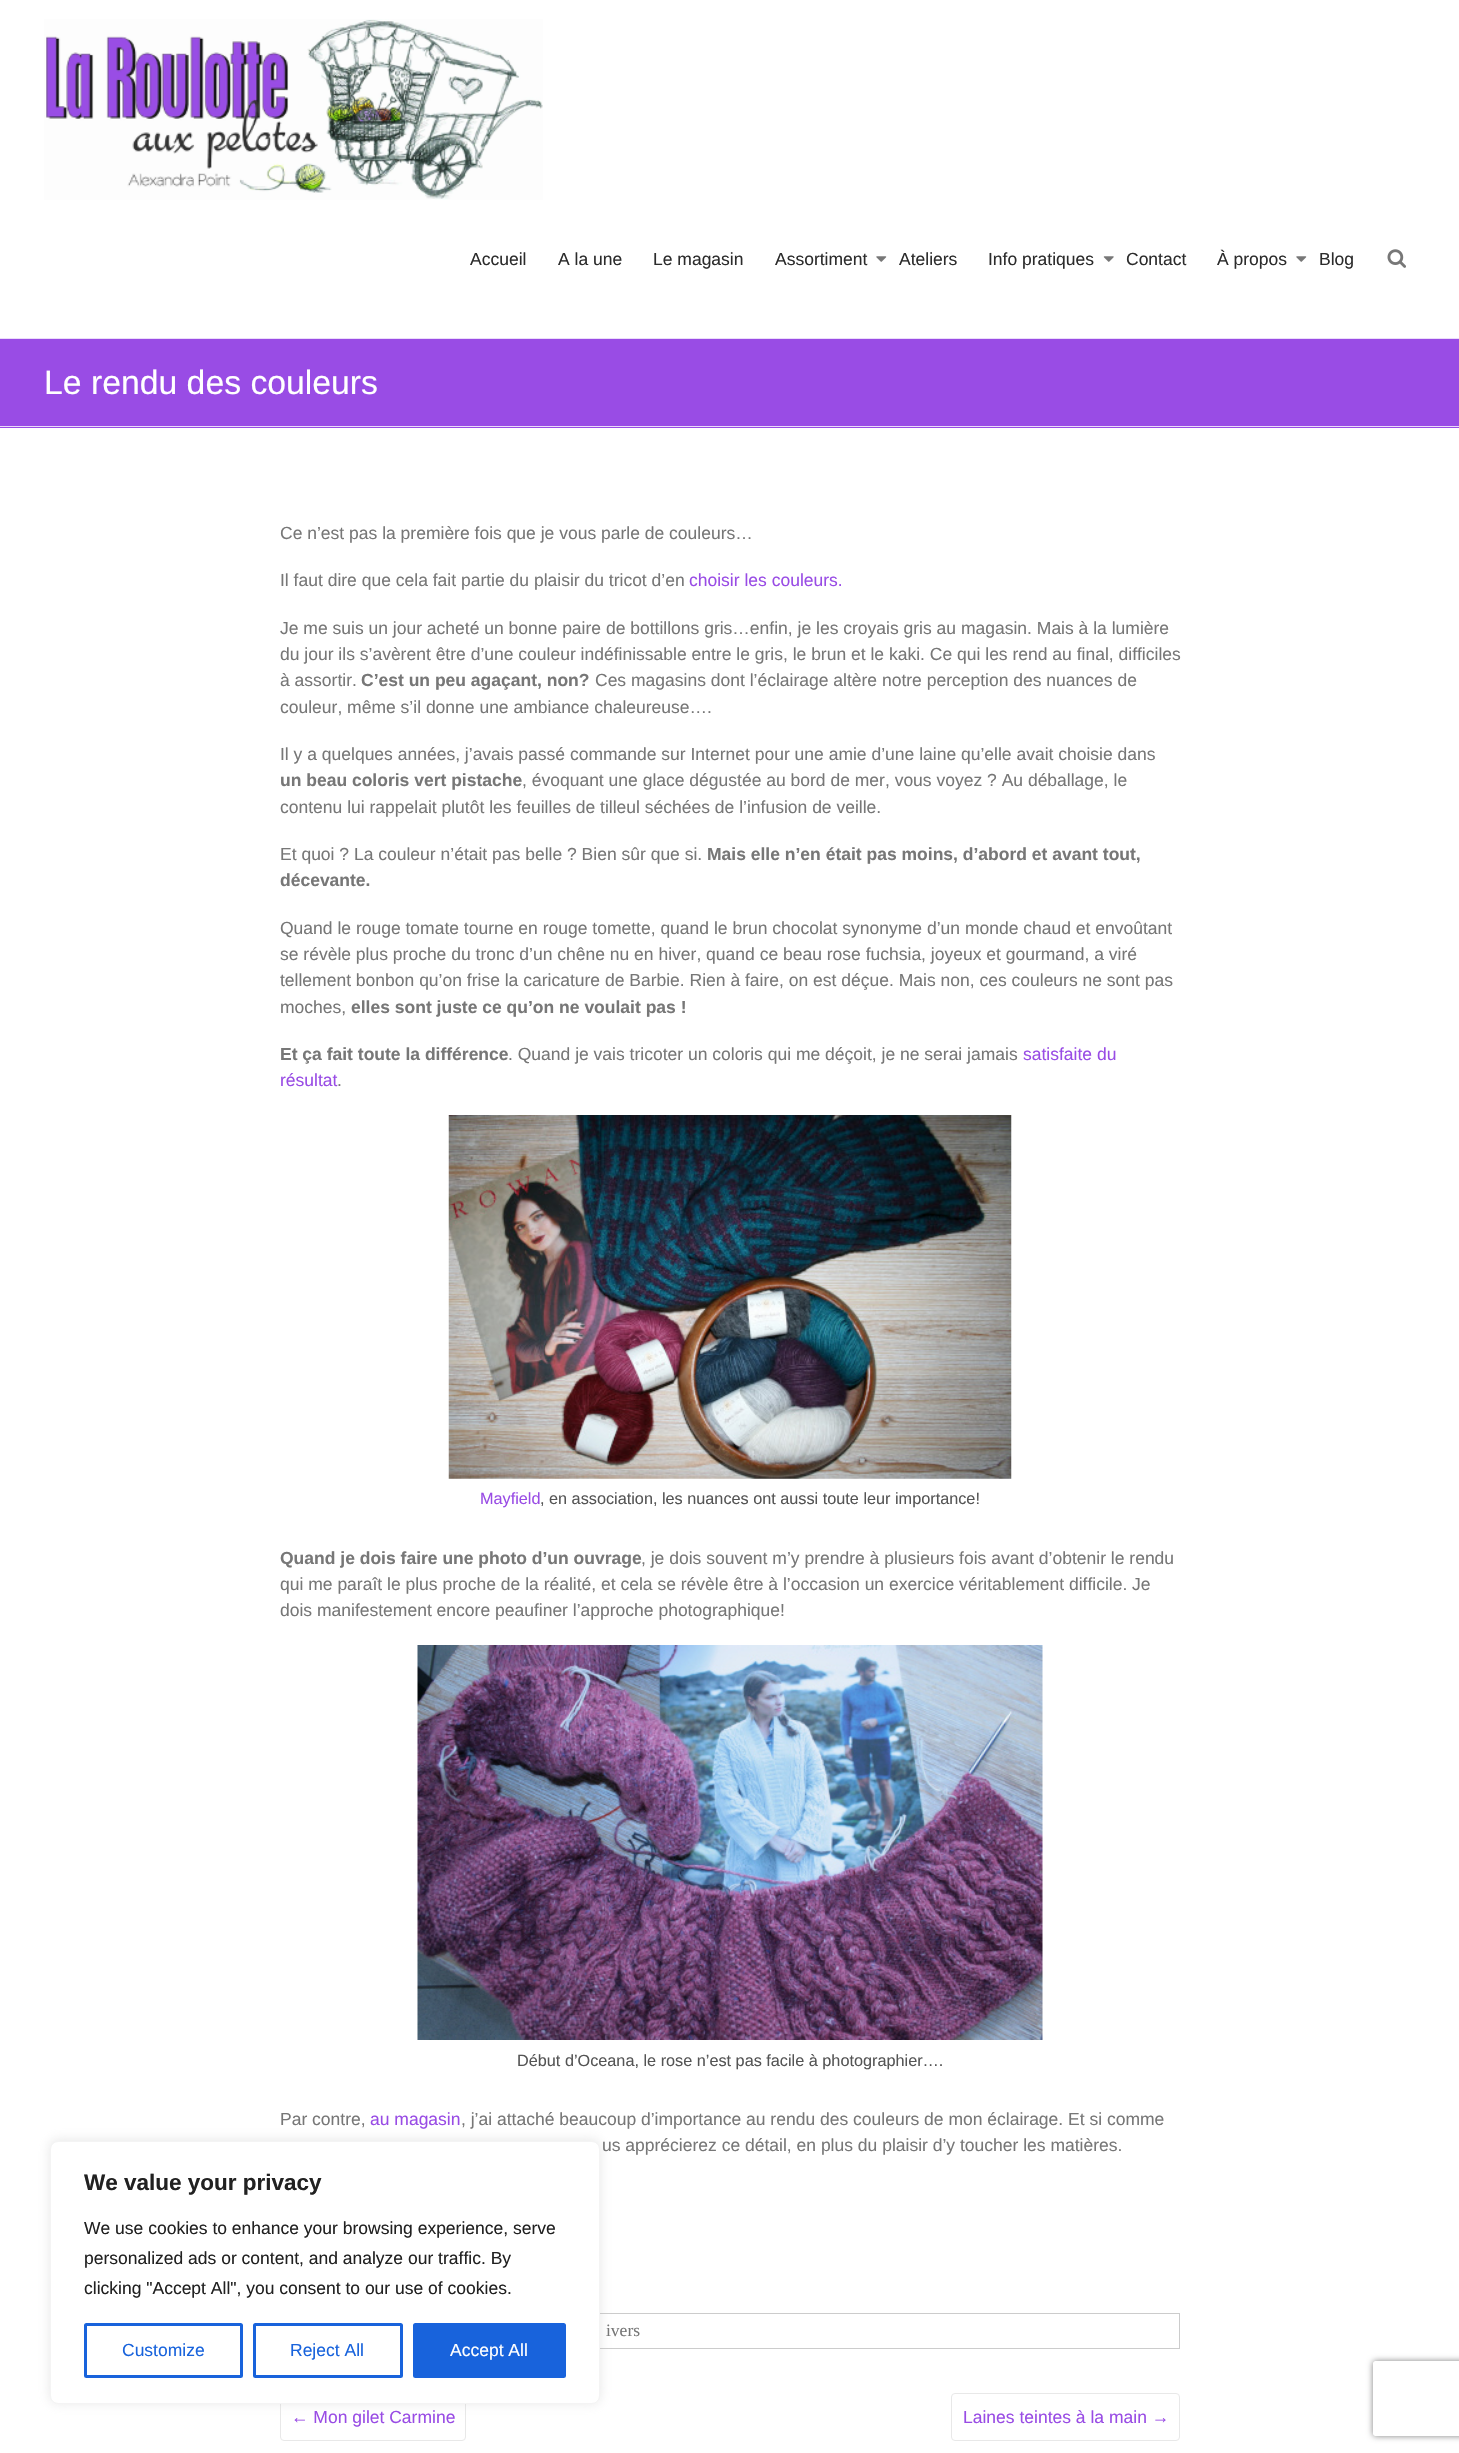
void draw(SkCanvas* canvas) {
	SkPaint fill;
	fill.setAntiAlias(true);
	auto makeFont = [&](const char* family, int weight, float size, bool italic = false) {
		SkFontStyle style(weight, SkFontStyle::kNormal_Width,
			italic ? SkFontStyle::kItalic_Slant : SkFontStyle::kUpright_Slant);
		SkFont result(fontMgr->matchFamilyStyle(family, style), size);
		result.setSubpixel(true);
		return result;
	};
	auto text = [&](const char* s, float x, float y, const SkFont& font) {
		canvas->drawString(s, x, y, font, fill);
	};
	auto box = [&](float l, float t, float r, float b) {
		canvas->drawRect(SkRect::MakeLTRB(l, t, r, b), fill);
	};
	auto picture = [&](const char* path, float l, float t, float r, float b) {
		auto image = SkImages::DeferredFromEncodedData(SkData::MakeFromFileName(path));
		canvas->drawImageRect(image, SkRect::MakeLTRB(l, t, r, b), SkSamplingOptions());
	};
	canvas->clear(0xFFFFFFFF);
	picture("image0.png", 44, 19, 543, 200);
	picture("image1.png", 876, 256, 887, 262);
	picture("image2.png", 1103, 256, 1114, 262);
	picture("image1.png", 1296, 256, 1307, 262);
	picture("image3.png", 1387, 249, 1406, 268);
	fill.setColor(0xFF994CE5);
	box(0, 339, 1459, 428);
	fill.setColor(0xFFEBDBFA);
	box(0, 338, 1459, 339);
	box(0, 426, 1459, 427);
	picture("image4.png", 448, 1115, 1012, 1479);
	picture("image5.png", 417, 1645, 1043, 2040);
	fill.setStyle(SkPaint::kStroke_Style);
	fill.setStrokeWidth(1);
	fill.setColor(0xFFCCCCCC);
	canvas->drawRect(SkRect::MakeLTRB(280.5f, 2313.5f, 1179.5f, 2348.5f), fill);
	fill.setColor(0xFFE8E8E8);
	canvas->drawRoundRect(SkRect::MakeLTRB(280.5f, 2393.5f, 465.5f, 2440.5f), 3.5f, 3.5f, fill);
	canvas->drawRoundRect(SkRect::MakeLTRB(951.5f, 2393.5f, 1179.5f, 2440.5f), 3.5f, 3.5f, fill);
	fill.setStyle(SkPaint::kFill_Style);
	fill.setColor(0x4DACABAB);
	fill.setMaskFilter(SkMaskFilter::MakeBlur(kNormal_SkBlurStyle, 6));
	canvas->drawRoundRect(SkRect::MakeLTRB(50, 2140, 600, 2403), 8, 8, fill);
	fill.setMaskFilter(nullptr);
	fill.setColor(0xFFFFFFFF);
	canvas->drawRoundRect(SkRect::MakeLTRB(50.5f, 2141.5f, 599.5f, 2403.5f), 7.5f, 7.5f, fill);
	fill.setStyle(SkPaint::kStroke_Style);
	fill.setColor(0xFFF4F4F4);
	canvas->drawRoundRect(SkRect::MakeLTRB(50.5f, 2141.5f, 599.5f, 2403.5f), 7.5f, 7.5f, fill);
	fill.setStrokeWidth(3);
	fill.setColor(0xFF1863DC);
	canvas->drawRoundRect(SkRect::MakeLTRB(85.5f, 2324.5f, 241.5f, 2376.5f), 1, 1, fill);
	canvas->drawRoundRect(SkRect::MakeLTRB(254.5f, 2324.5f, 401.5f, 2376.5f), 1, 1, fill);
	fill.setStyle(SkPaint::kFill_Style);
	canvas->drawRoundRect(SkRect::MakeLTRB(414.5f, 2324.5f, 564.5f, 2376.5f), 1, 1, fill);
	fill.setStyle(SkPaint::kStroke_Style);
	canvas->drawRoundRect(SkRect::MakeLTRB(414.5f, 2324.5f, 564.5f, 2376.5f), 1, 1, fill);
	canvas->save();
	canvas->clipPath(SkPathBuilder(SkPathFillType::kEvenOdd).moveTo(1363, 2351).lineTo(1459, 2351).lineTo(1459, 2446).lineTo(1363, 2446).close().moveTo(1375.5f, 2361).lineTo(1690.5f, 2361).cubicTo(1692, 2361, 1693, 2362, 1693, 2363.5f).lineTo(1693, 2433.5f).cubicTo(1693, 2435, 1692, 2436, 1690.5f, 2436).lineTo(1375.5f, 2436).cubicTo(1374, 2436, 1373, 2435, 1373, 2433.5f).lineTo(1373, 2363.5f).cubicTo(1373, 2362, 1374, 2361, 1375.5f, 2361).close().detach(), true);
	fill.setStyle(SkPaint::kFill_Style);
	fill.setColor(0xFF808080);
	fill.setMaskFilter(SkMaskFilter::MakeBlur(kNormal_SkBlurStyle, 3));
	canvas->drawRoundRect(SkRect::MakeLTRB(1373, 2361, 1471, 2436), 2.5f, 2.5f, fill);
	fill.setMaskFilter(nullptr);
	canvas->restore();
	auto font1 = makeFont("Liberation Sans", 400, 17.5f);
	fill.setColor(0xFF2C2C2C);
	text("Accueil", 470, 265, font1);
	text("A la une", 558, 265, font1);
	text("Le magasin", 653, 265, font1);
	text("Assortiment", 775, 265, font1);
	text("Ateliers", 899, 265, font1);
	text("Info pratiques", 988, 265, font1);
	text("Contact", 1126, 265, font1);
	text("À propos", 1217, 265, font1);
	text("Blog", 1319, 265, font1);
	auto font2 = makeFont("Liberation Sans", 400, 33.75f);
	fill.setColor(0xFFFFFFFF);
	text("Le rendu des couleurs", 44, 394, font2);
	fill.setColor(0xFF777777);
	text("Ce n’est pas la première fois que je vous parle de couleurs…", 280, 539, font1);
	text("Il faut dire que cela fait partie du plaisir du tricot d’en", 280, 586, font1);
	fill.setColor(0xFF994CE5);
	text("choisir les couleurs.", 689, 586, font1);
	fill.setColor(0xFF777777);
	text("Je me suis un jour acheté un bonne paire de bottillons gris…enfin, je les croyais gris au magasin. Mais à la lumière", 280, 634, font1);
	text("du jour ils s’avèrent être d’une couleur indéfinissable entre le gris, le brun et le kaki. Ce qui les rend au final, difficiles", 280, 660, font1);
	text("à assortir.", 280, 686, font1);
	auto font3 = makeFont("Liberation Sans", 700, 17.5f);
	text("C’est un peu agaçant, non?", 361, 686, font3);
	text("Ces magasins dont l’éclairage altère notre perception des nuances de", 595, 686, font1);
	text("couleur, même s’il donne une ambiance chaleureuse….", 280, 713, font1);
	text("Il y a quelques années, j’avais passé commande sur Internet pour une amie d’une laine qu’elle avait choisie dans", 280, 760, font1);
	text("un beau coloris vert pistache", 280, 786, font3);
	text(", évoquant une glace dégustée au bord de mer, vous voyez ? Au déballage, le", 522, 786, font1);
	text("contenu lui rappelait plutôt les feuilles de tilleul séchées de l’infusion de veille.", 280, 813, font1);
	text("Et quoi ? La couleur n’était pas belle ? Bien sûr que si.", 280, 860, font1);
	text("Mais elle n’en était pas moins, d’abord et avant tout,", 707, 860, font3);
	text("décevante.", 280, 886, font3);
	text("Quand le rouge tomate tourne en rouge tomette, quand le brun chocolat synonyme d’un monde chaud et envoûtant", 280, 934, font1);
	text("se révèle plus proche du tronc d’un chêne nu en hiver, quand ce beau rose fuchsia, joyeux et gourmand, a viré", 280, 960, font1);
	text("tellement bonbon qu’on frise la caricature de Barbie. Rien à faire, on est déçue. Mais non, ces couleurs ne sont pas", 280, 986, font1);
	text("moches,", 280, 1013, font1);
	text("elles sont juste ce qu’on ne voulait pas !", 351, 1013, font3);
	text("Et ça fait toute la différence", 280, 1060, font3);
	text(". Quand je vais tricoter un coloris qui me déçoit, je ne serai jamais", 508, 1060, font1);
	fill.setColor(0xFF994CE5);
	text("satisfaite du", 1023, 1060, font1);
	text("résultat", 280, 1086, font1);
	fill.setColor(0xFF777777);
	text(".", 337, 1086, font1);
	auto font4 = makeFont("Liberation Sans", 400, 16.25f);
	fill.setColor(0xFF994CE5);
	text("Mayfield", 480, 1504, font4);
	fill.setColor(0xFF555555);
	text(", en association, les nuances ont aussi toute leur importance!", 540, 1504, font4);
	fill.setColor(0xFF777777);
	text("Quand je dois faire une photo d’un ouvrage", 280, 1564, font3);
	text(", je dois souvent m’y prendre à plusieurs fois avant d’obtenir le rendu", 641, 1564, font1);
	text("qui me paraît le plus proche de la réalité, et cela se révèle être à l’occasion un exercice véritablement difficile. Je", 280, 1590, font1);
	text("dois manifestement encore peaufiner l’approche photographique!", 280, 1616, font1);
	fill.setColor(0xFF555555);
	text("Début d’Oceana, le rose n’est pas facile à photographier….", 517, 2066, font4);
	fill.setColor(0xFF777777);
	text("Par contre,", 280, 2125, font1);
	fill.setColor(0xFF994CE5);
	text("au magasin", 370, 2125, font1);
	fill.setColor(0xFF777777);
	text(", j’ai attaché beaucoup d’importance au rendu des couleurs de mon éclairage. Et si comme", 461, 2125, font1);
	text("us apprécierez ce détail, en plus du plaisir d’y toucher les matières.", 602, 2151, font1);
	auto font5 = makeFont("Liberation Serif", 400, 17.5f);
	text("ivers", 606, 2336, font5);
	fill.setColor(0xFF994CE5);
	text("← Mon gilet Carmine", 291, 2423, font1);
	text("Laines teintes à la main →", 963, 2423, font1);
	auto font6 = makeFont("Liberation Sans", 700, 22.5f);
	fill.setColor(0xFF212121);
	text("We value your privacy", 84, 2190, font6);
	text("We use cookies to enhance your browsing experience, serve", 84, 2234, font1);
	text("personalized ads or content, and analyze our traffic. By", 84, 2264, font1);
	text("clicking \"Accept All\", you consent to our use of cookies.", 84, 2294, font1);
	fill.setColor(0xFF1863DC);
	text("Customize", 122, 2356, font1);
	text("Reject All", 290, 2356, font1);
	fill.setColor(0xFFFFFFFF);
	text("Accept All", 450, 2356, font1);
}
